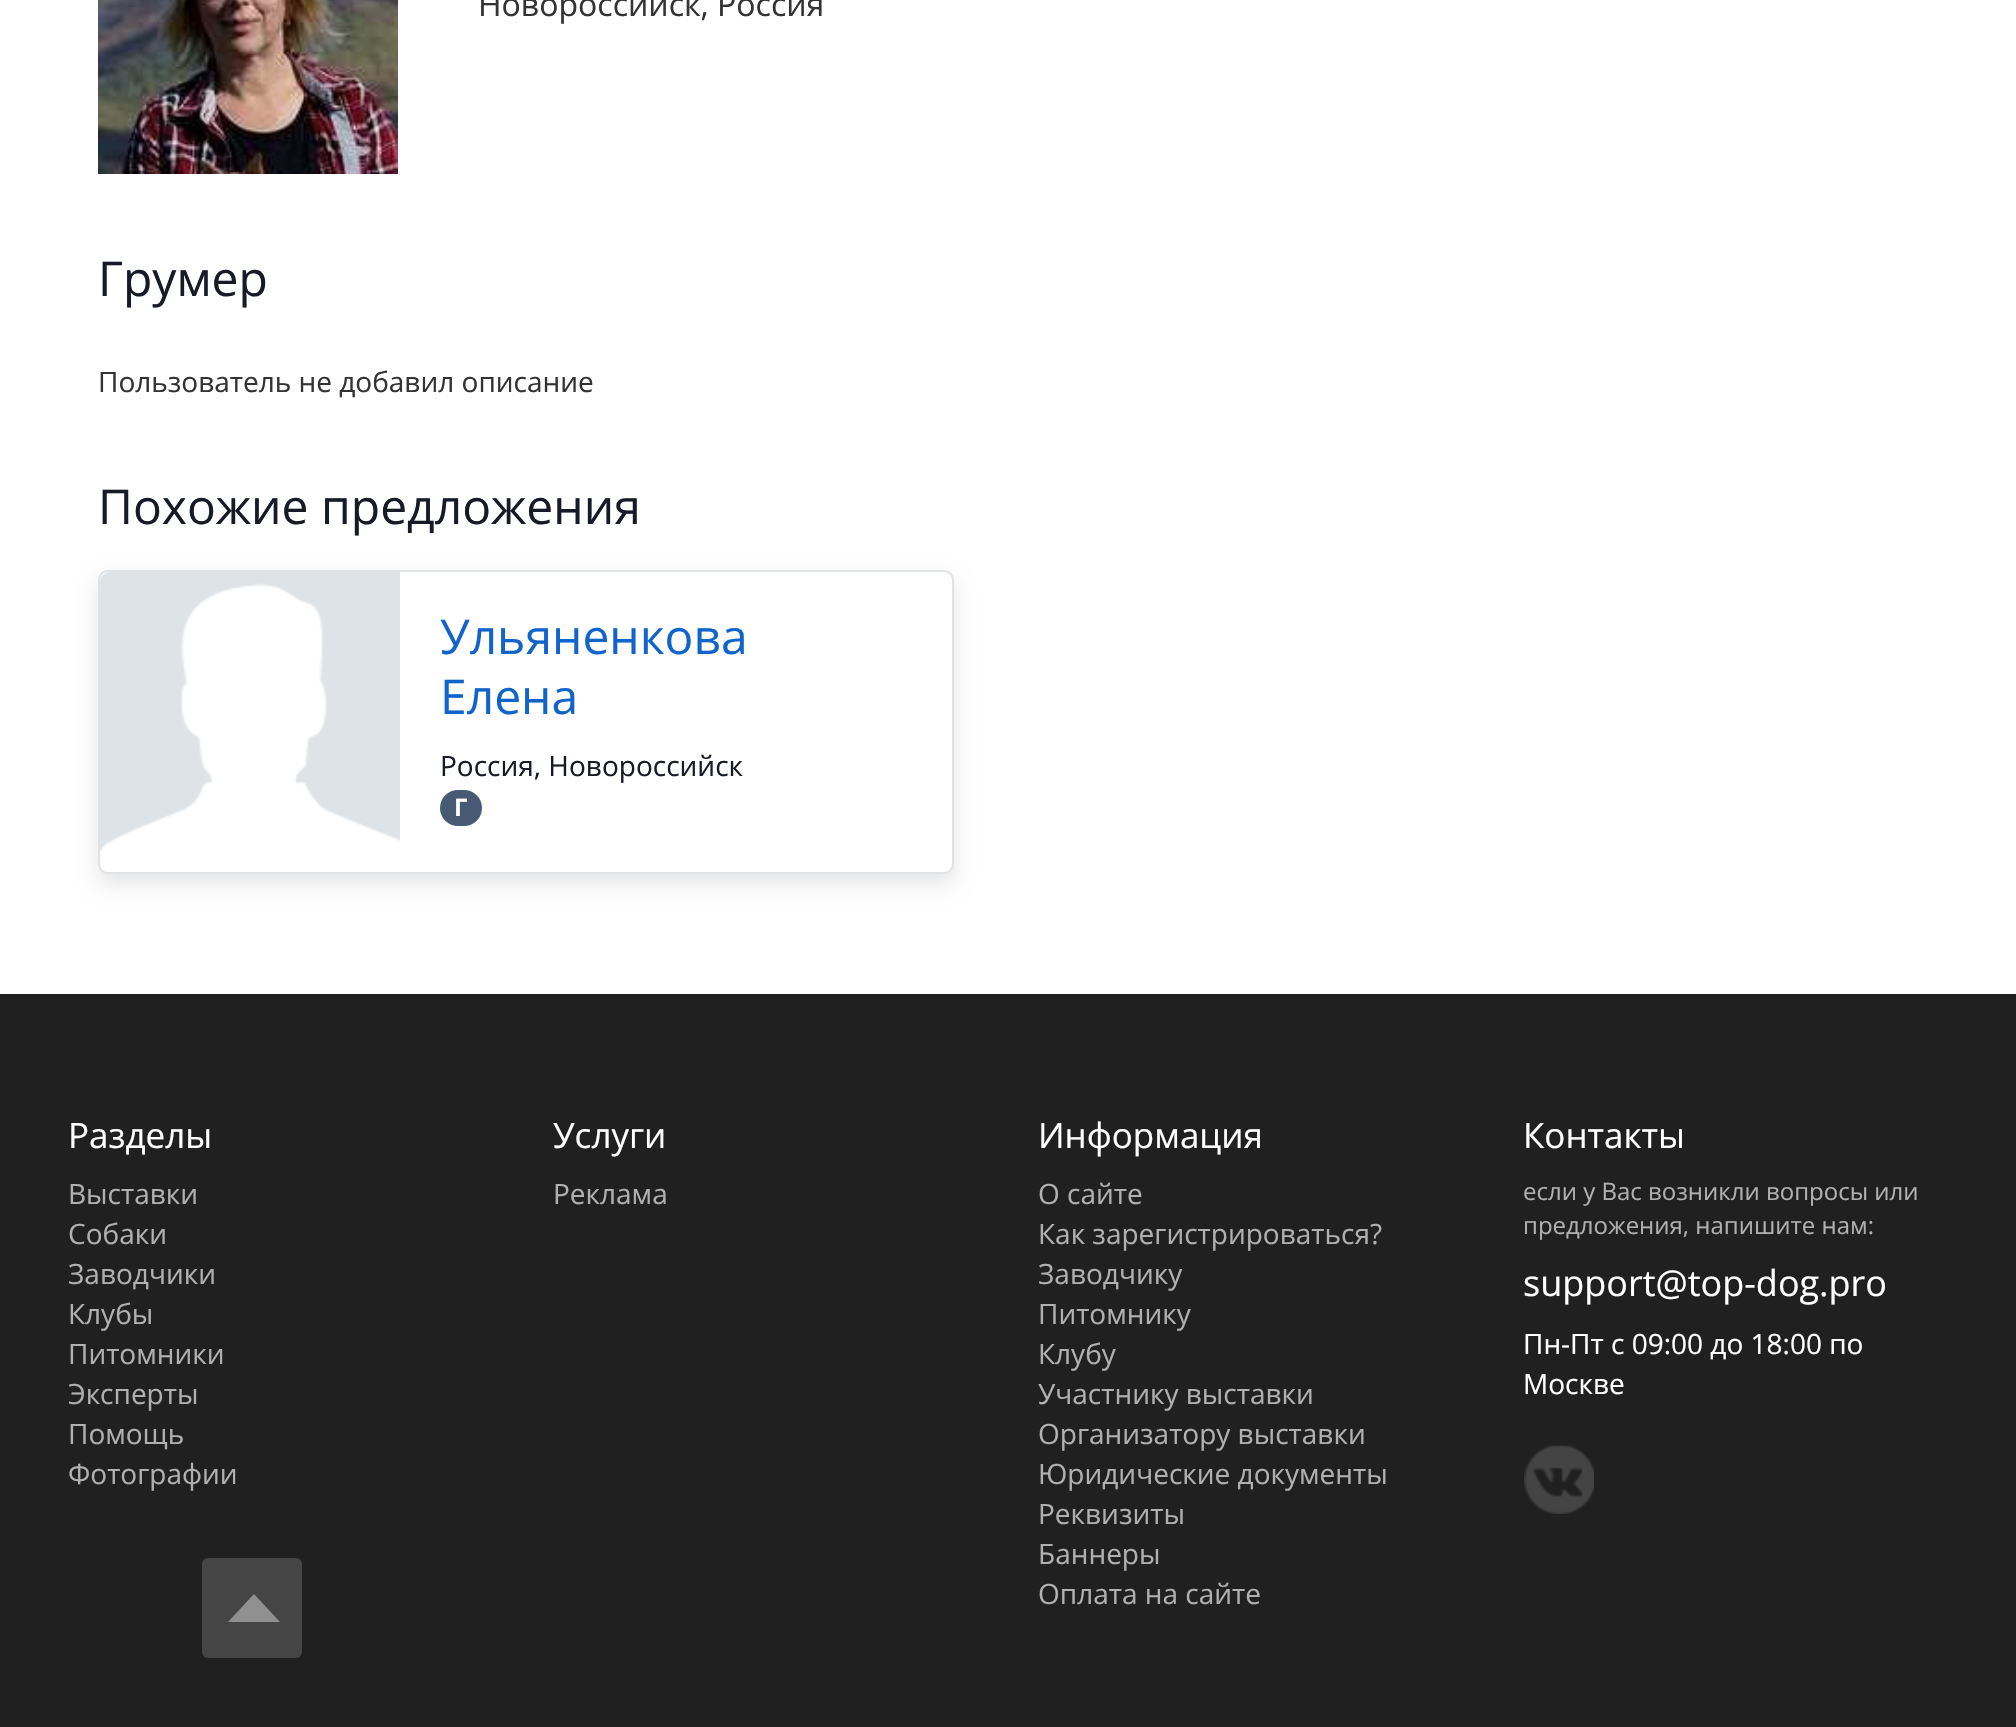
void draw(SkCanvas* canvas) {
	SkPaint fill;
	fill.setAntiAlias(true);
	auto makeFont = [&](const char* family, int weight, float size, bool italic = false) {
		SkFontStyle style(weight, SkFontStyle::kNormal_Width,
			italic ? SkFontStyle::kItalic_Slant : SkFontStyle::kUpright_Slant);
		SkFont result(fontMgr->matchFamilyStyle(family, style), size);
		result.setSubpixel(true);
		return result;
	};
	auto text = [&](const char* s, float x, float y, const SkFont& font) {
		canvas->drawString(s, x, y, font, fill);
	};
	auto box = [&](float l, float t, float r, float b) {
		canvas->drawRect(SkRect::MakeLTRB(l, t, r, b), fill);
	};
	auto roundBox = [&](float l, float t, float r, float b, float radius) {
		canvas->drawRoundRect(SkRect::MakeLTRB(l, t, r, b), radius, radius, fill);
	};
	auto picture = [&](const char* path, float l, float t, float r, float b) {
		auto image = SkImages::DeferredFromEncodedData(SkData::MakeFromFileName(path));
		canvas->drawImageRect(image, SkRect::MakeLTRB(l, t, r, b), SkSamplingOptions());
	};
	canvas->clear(0xFFFFFFFF);
	picture("image0.png", 98, 0, 398, 174);
	fill.setColor(0x1A000000);
	fill.setMaskFilter(SkMaskFilter::MakeBlur(kNormal_SkBlurStyle, 10));
	canvas->drawRoundRect(SkRect::MakeLTRB(98, 580, 954, 884), 10, 10, fill);
	fill.setMaskFilter(nullptr);
	fill.setColor(0xFFFFFFFF);
	canvas->drawRoundRect(SkRect::MakeLTRB(99, 571, 953, 873), 9, 9, fill);
	fill.setStyle(SkPaint::kStroke_Style);
	fill.setStrokeWidth(2);
	fill.setColor(0xFFDFE3E6);
	canvas->drawRoundRect(SkRect::MakeLTRB(99, 571, 953, 873), 9, 9, fill);
	picture("image1.png", 100, 572, 400, 852);
	fill.setStyle(SkPaint::kFill_Style);
	fill.setColor(0xFF485A73);
	roundBox(440, 790, 482, 826, 18);
	fill.setColor(0xFF202020);
	box(0, 994, 2016, 1727);
	picture("image2.png", 1524, 1445, 1594, 1514);
	fill.setColor(0xFF454545);
	roundBox(202, 1558, 302, 1658, 6);
	fill.setColor(0xFF909090);
	canvas->drawPath(SkPathBuilder().moveTo(280, 1622).lineTo(228, 1622).lineTo(254, 1594).close().detach(), fill);
	auto font1 = makeFont("Open Sans", 400, 32);
	fill.setColor(0xFF333333);
	text("Новороссийск, Россия", 478, 16, font1);
	auto font2 = makeFont("Open Sans", 400, 48);
	fill.setColor(0xFF171B28);
	text("Грумер", 98, 296, font2);
	auto font3 = makeFont("Open Sans", 400, 28);
	fill.setColor(0xFF333333);
	text("Пользователь не добавил описание", 98, 392, font3);
	fill.setColor(0xFF171B28);
	text("Похожие предложения", 98, 524, font2);
	fill.setColor(0xFF1164C9);
	text("Ульяненкова", 440, 654, font2);
	text("Елена", 440, 714, font2);
	fill.setColor(0xFF171B28);
	text("Россия, Новороссийск", 440, 776, font3);
	auto font4 = makeFont("Open Sans", 700, 24);
	fill.setColor(0xFFFFFFFF);
	text("Г", 454, 816, font4);
	auto font5 = makeFont("Open Sans", 400, 35);
	text("Разделы", 68, 1148, font5);
	fill.setColor(0xFFB0B0B0);
	text("Выставки", 68, 1204, font3);
	text("Собаки", 68, 1244, font3);
	text("Заводчики", 68, 1284, font3);
	text("Клубы", 68, 1324, font3);
	text("Питомники", 68, 1364, font3);
	text("Эксперты", 68, 1404, font3);
	text("Помощь", 68, 1444, font3);
	text("Фотографии", 68, 1484, font3);
	fill.setColor(0xFFFFFFFF);
	text("Услуги", 553, 1148, font5);
	fill.setColor(0xFFB0B0B0);
	text("Реклама", 553, 1204, font3);
	fill.setColor(0xFFFFFFFF);
	text("Информация", 1038, 1148, font5);
	fill.setColor(0xFFB0B0B0);
	text("О сайте", 1038, 1204, font3);
	text("Как зарегистрироваться?", 1038, 1244, font3);
	text("Заводчику", 1038, 1284, font3);
	text("Питомнику", 1038, 1324, font3);
	text("Клубу", 1038, 1364, font3);
	text("Участнику выставки", 1038, 1404, font3);
	text("Организатору выставки", 1038, 1444, font3);
	text("Юридические документы", 1038, 1484, font3);
	text("Реквизиты", 1038, 1524, font3);
	text("Баннеры", 1038, 1564, font3);
	text("Оплата на сайте", 1038, 1604, font3);
	fill.setColor(0xFFFFFFFF);
	text("Контакты", 1523, 1148, font5);
	auto font6 = makeFont("Open Sans", 400, 24);
	fill.setColor(0xFFB0B0B0);
	text("eсли у Вас возникли вопросы или", 1523, 1200, font6);
	text("предложения, напишите нам:", 1523, 1234, font6);
	auto font7 = makeFont("Open Sans", 400, 36);
	fill.setColor(0xFFFFFFFF);
	text("support@top-dog.pro", 1523, 1296, font7);
	text("Пн-Пт с 09:00 до 18:00 по", 1523, 1354, font3);
	text("Москве", 1523, 1394, font3);
}
